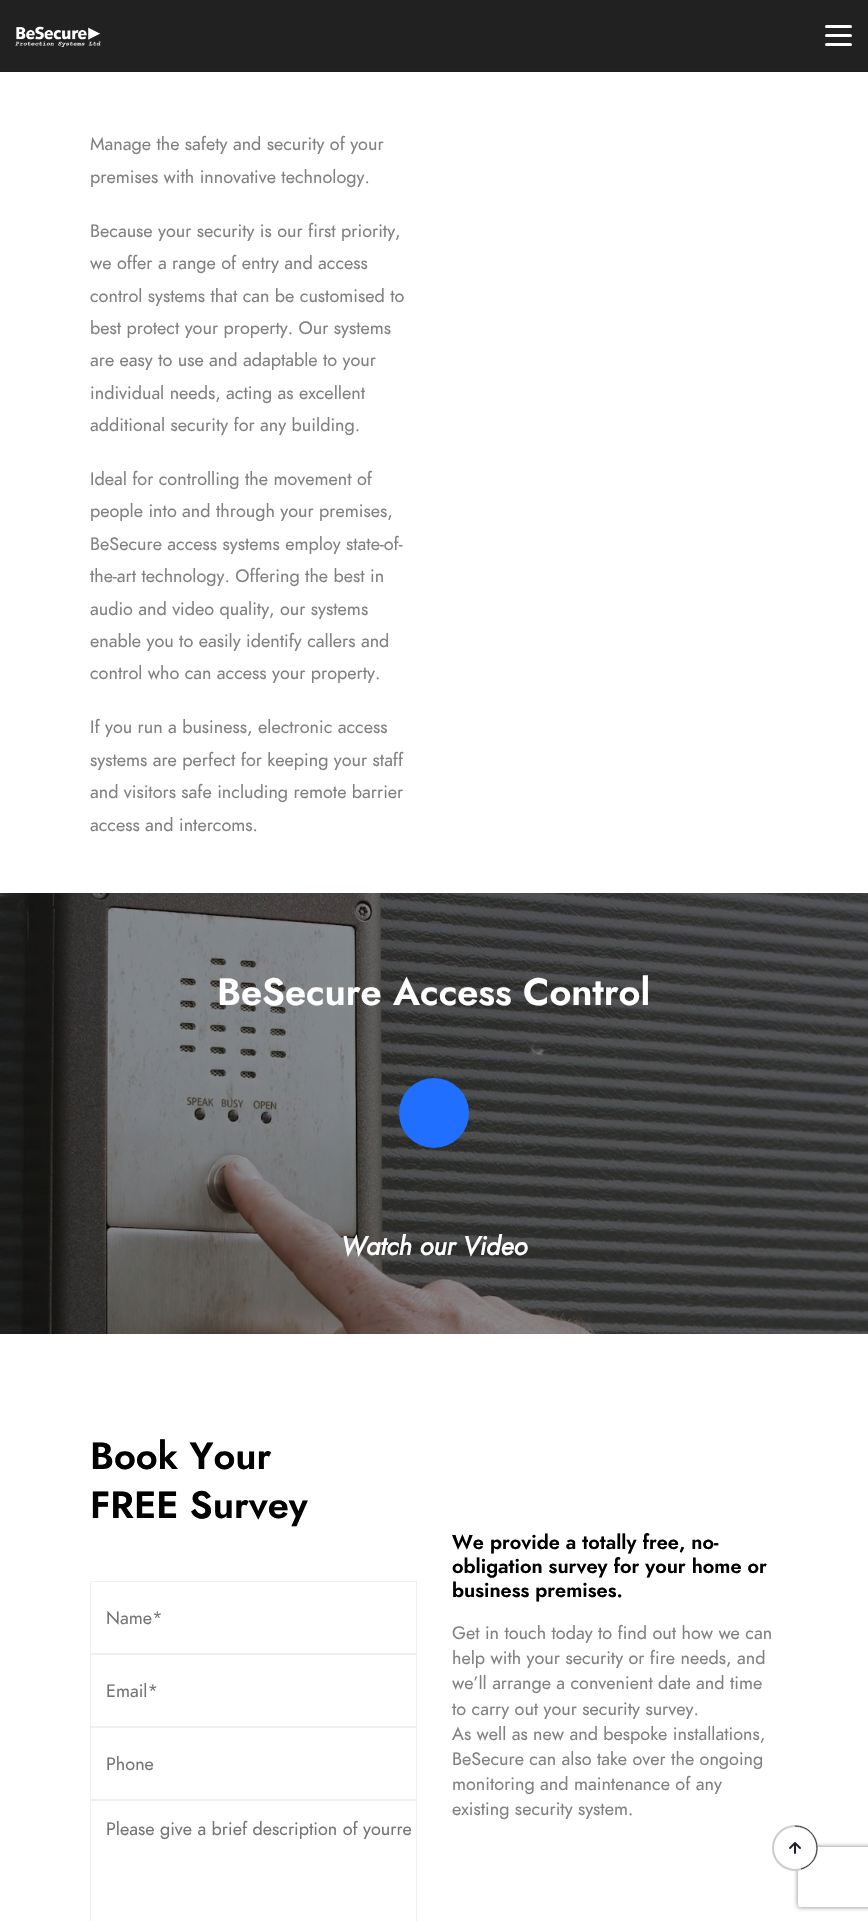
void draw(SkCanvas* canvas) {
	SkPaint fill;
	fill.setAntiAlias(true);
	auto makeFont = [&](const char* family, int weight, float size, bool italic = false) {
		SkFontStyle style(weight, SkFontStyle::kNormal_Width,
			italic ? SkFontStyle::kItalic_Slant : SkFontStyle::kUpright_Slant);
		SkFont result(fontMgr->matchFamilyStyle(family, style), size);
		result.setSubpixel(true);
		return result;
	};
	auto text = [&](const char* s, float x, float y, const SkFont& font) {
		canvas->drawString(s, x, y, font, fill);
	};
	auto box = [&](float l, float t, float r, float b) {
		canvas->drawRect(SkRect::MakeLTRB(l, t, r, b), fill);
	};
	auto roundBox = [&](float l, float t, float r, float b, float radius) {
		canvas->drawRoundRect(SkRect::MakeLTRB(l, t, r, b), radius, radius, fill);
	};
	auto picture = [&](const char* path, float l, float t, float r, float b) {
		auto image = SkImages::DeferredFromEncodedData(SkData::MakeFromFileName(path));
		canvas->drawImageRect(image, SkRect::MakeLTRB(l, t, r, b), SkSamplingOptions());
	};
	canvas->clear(0xFFFFFFFF);
	fill.setColor(0xFF212121);
	box(0, 0, 868, 71);
	picture("image0.png", 15, 26, 101, 47);
	fill.setColor(0xFFFFFFFF);
	roundBox(825, 25, 852, 28, 1.5f);
	roundBox(825, 34, 852, 37, 1.5f);
	roundBox(825, 43, 852, 46, 1.5f);
	fill.setColor(0xFF1E1E1E);
	box(0, 71, 868, 72);
	picture("image1.png", 0, 893, 868, 1334);
	fill.setColor(0xFF216FFF);
	canvas->drawCircle(434, 1113, 35, fill);
	fill.setStyle(SkPaint::kStroke_Style);
	fill.setStrokeWidth(1);
	fill.setColor(0xFFEFEFEF);
	canvas->drawRect(SkRect::MakeLTRB(90.5f, 1581.5f, 416.5f, 1653.5f), fill);
	canvas->drawRect(SkRect::MakeLTRB(90.5f, 1654.5f, 416.5f, 1726.5f), fill);
	canvas->drawRect(SkRect::MakeLTRB(90.5f, 1727.5f, 416.5f, 1799.5f), fill);
	canvas->drawRect(SkRect::MakeLTRB(90.5f, 1800.5f, 416.5f, 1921.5f), fill);
	canvas->save();
	canvas->clipPath(SkPathBuilder(SkPathFillType::kEvenOdd).moveTo(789, 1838).lineTo(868, 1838).lineTo(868, 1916).lineTo(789, 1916).close().moveTo(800, 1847).lineTo(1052, 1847).cubicTo(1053, 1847, 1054, 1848, 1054, 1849).lineTo(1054, 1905).cubicTo(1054, 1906, 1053, 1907, 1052, 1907).lineTo(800, 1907).cubicTo(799, 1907, 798, 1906, 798, 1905).lineTo(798, 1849).cubicTo(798, 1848, 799, 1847, 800, 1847).close().detach(), true);
	fill.setStyle(SkPaint::kFill_Style);
	fill.setColor(0xFF808080);
	fill.setMaskFilter(SkMaskFilter::MakeBlur(kNormal_SkBlurStyle, 2.5f));
	canvas->drawRoundRect(SkRect::MakeLTRB(798, 1847, 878, 1907), 2, 2, fill);
	fill.setMaskFilter(nullptr);
	canvas->restore();
	fill.setColor(0xFFFFFFFF);
	canvas->drawCircle(795, 1848, 22, fill);
	fill.setStyle(SkPaint::kStroke_Style);
	fill.setStrokeWidth(2);
	fill.setColor(0xFFCCCCCC);
	canvas->drawCircle(795, 1848, 22, fill);
	fill.setStrokeWidth(0.9f);
	fill.setColor(0xFF1F2029);
	canvas->drawPath(SkPathBuilder().moveTo(795, 1826).cubicTo(820.5f, 1826, 825.5f, 1862, 801, 1869).detach(), fill);
	picture("image2.png", 789, 1842, 801, 1854);
	auto font1 = makeFont("Jost", 400, 18);
	fill.setStyle(SkPaint::kFill_Style);
	fill.setColor(0xFF818181);
	text("Manage the safety and security of your", 90, 150, font1);
	text("premises with innovative technology.", 90, 183, font1);
	text("Because your security is our first priority,", 90, 237, font1);
	text("we offer a range of entry and access", 90, 269, font1);
	text("control systems that can be customised to", 90, 302, font1);
	text("best protect your property. Our systems", 90, 334, font1);
	text("are easy to use and adaptable to your", 90, 366, font1);
	text("individual needs, acting as excellent", 90, 399, font1);
	text("additional security for any building.", 90, 431, font1);
	text("Ideal for controlling the movement of", 90, 485, font1);
	text("people into and through your premises,", 90, 517, font1);
	text("BeSecure access systems employ state-of-", 90, 550, font1);
	text("the-art technology. Offering the best in", 90, 582, font1);
	text("audio and video quality, our systems", 90, 615, font1);
	text("enable you to easily identify callers and", 90, 647, font1);
	text("control who can access your property.", 90, 679, font1);
	text("If you run a business, electronic access", 90, 733, font1);
	text("systems are perfect for keeping your staff", 90, 766, font1);
	text("and visitors safe including remote barrier", 90, 798, font1);
	text("access and intercoms.", 90, 831, font1);
	auto font2 = makeFont("Jost", 600, 38);
	fill.setColor(0xFFFFFFFF);
	text("BeSecure Access Control", 217, 1005, font2);
	auto font3 = makeFont("Jost", 700, 26, true);
	text("Watch our Video", 341, 1255, font3);
	fill.setColor(0xFF000000);
	text("Book Your", 90, 1469, font2);
	text("FREE Survey", 90, 1518, font2);
	fill.setColor(0xFF757575);
	text("Name*", 106, 1624, font1);
	text("Email*", 106, 1697, font1);
	text("Phone", 106, 1770, font1);
	text("Please give a brief description of yourre", 106, 1835, font1);
	auto font4 = makeFont("Jost", 600, 20);
	fill.setColor(0xFF000000);
	text("We provide a totally free, no-", 452, 1549, font4);
	text("obligation survey for your home or", 452, 1573, font4);
	text("business premises.", 452, 1597, font4);
	fill.setColor(0xFF818181);
	text("Get in touch today to find out how we can", 452, 1639, font1);
	text("help with your security or fire needs, and", 452, 1664, font1);
	text("we’ll arrange a convenient date and time", 452, 1689, font1);
	text("to carry out your security survey.", 452, 1715, font1);
	text("As well as new and bespoke installations,", 452, 1740, font1);
	text("BeSecure can also take over the ongoing", 452, 1765, font1);
	text("monitoring and maintenance of any", 452, 1790, font1);
	text("existing security system.", 452, 1815, font1);
}
